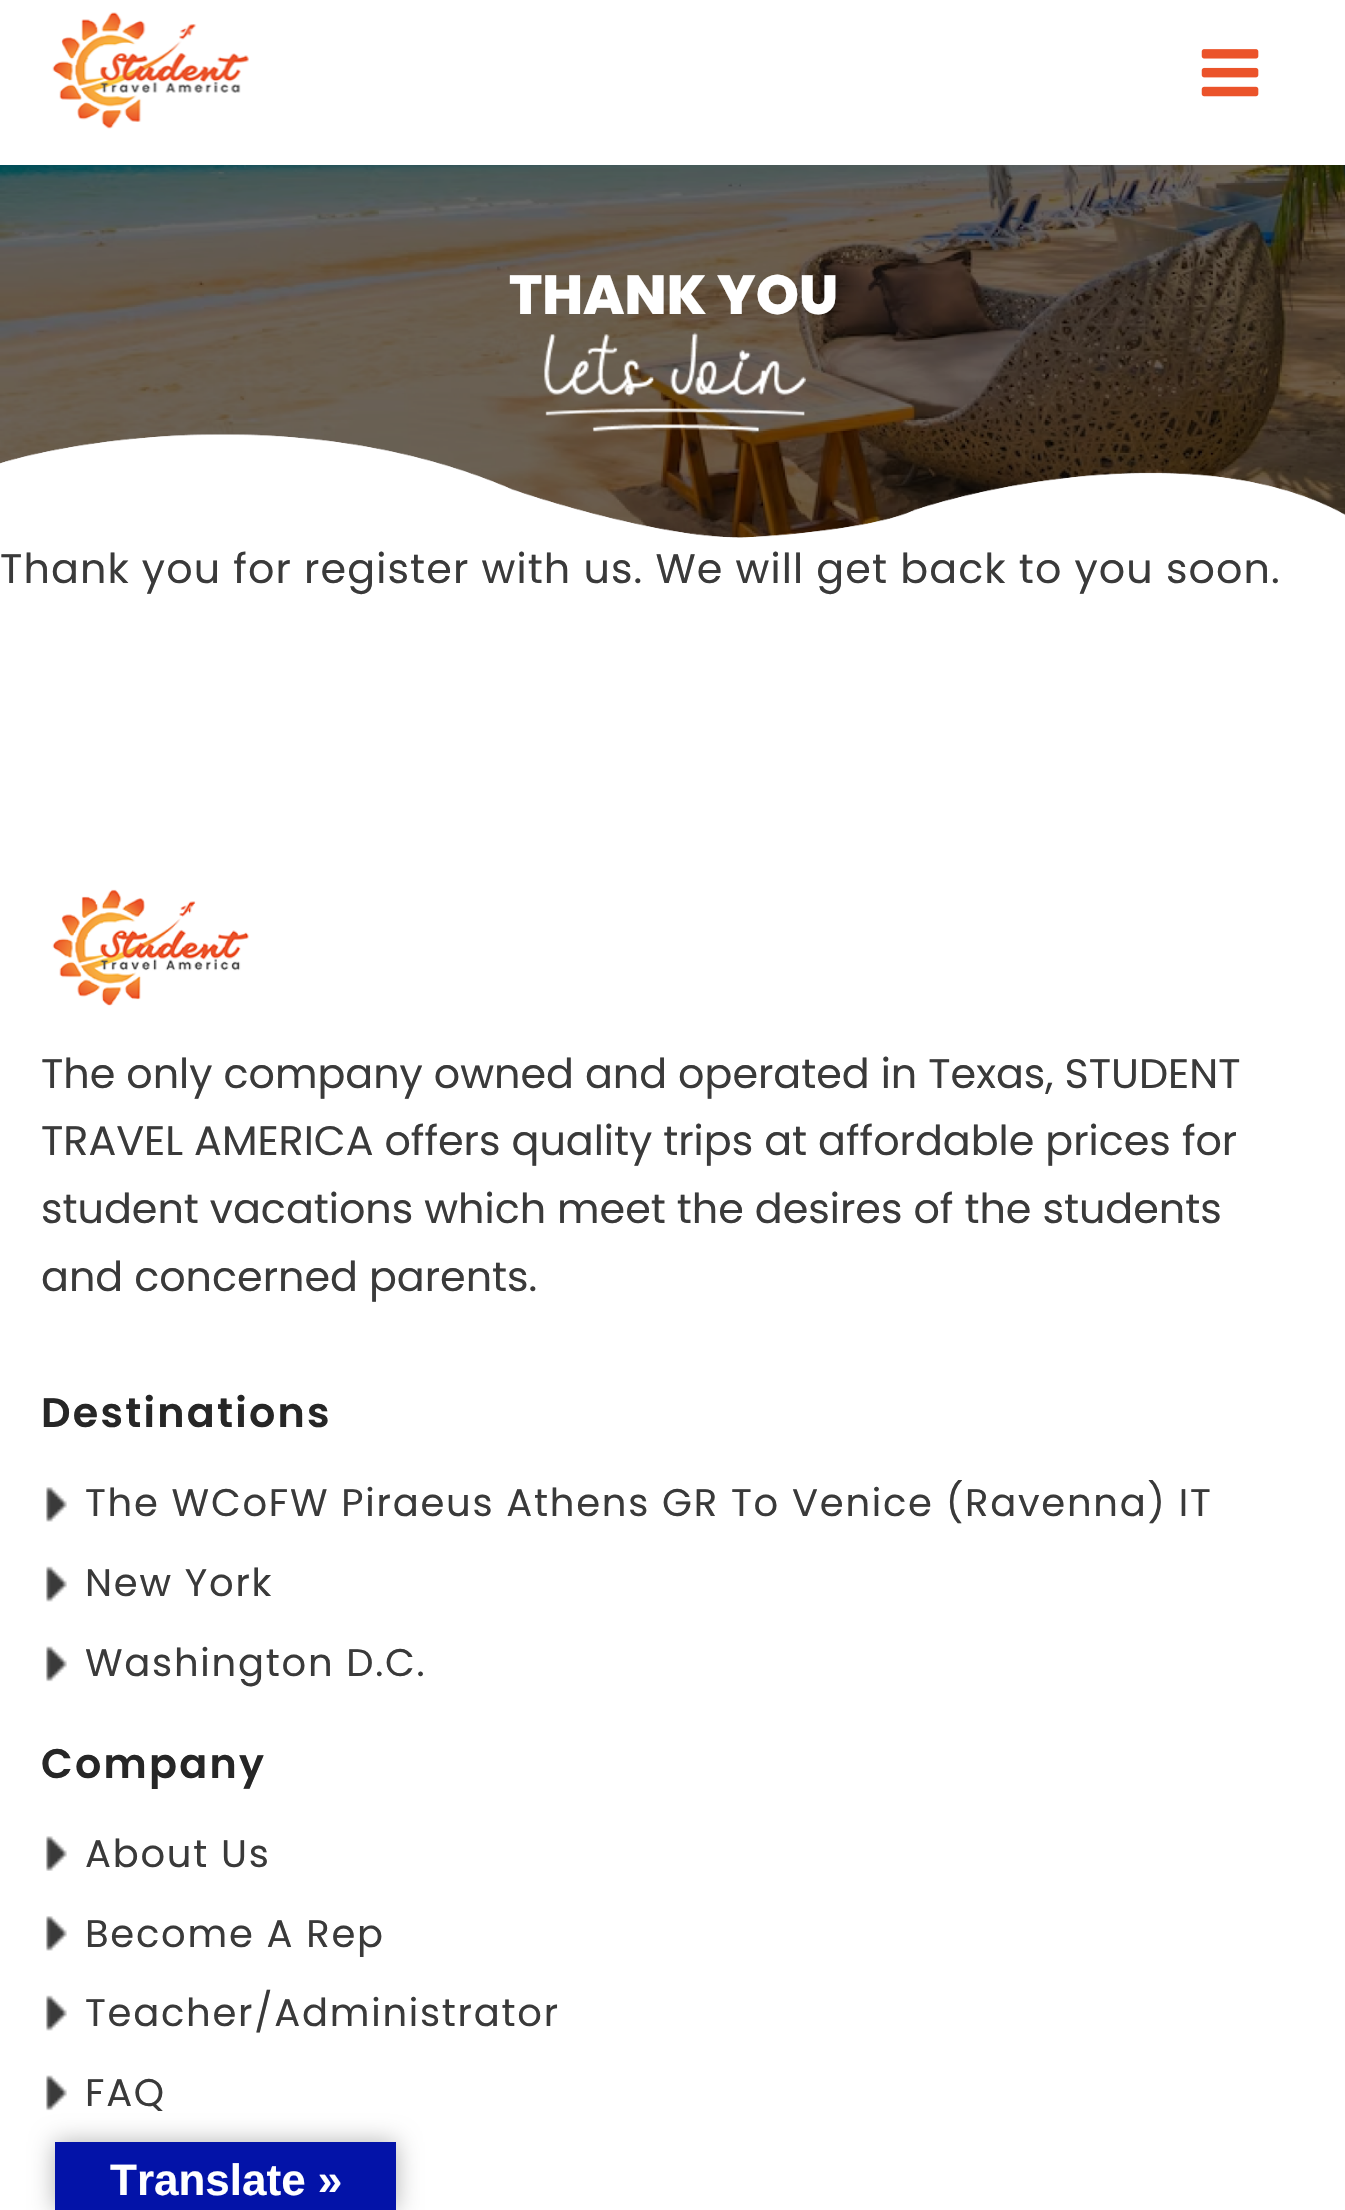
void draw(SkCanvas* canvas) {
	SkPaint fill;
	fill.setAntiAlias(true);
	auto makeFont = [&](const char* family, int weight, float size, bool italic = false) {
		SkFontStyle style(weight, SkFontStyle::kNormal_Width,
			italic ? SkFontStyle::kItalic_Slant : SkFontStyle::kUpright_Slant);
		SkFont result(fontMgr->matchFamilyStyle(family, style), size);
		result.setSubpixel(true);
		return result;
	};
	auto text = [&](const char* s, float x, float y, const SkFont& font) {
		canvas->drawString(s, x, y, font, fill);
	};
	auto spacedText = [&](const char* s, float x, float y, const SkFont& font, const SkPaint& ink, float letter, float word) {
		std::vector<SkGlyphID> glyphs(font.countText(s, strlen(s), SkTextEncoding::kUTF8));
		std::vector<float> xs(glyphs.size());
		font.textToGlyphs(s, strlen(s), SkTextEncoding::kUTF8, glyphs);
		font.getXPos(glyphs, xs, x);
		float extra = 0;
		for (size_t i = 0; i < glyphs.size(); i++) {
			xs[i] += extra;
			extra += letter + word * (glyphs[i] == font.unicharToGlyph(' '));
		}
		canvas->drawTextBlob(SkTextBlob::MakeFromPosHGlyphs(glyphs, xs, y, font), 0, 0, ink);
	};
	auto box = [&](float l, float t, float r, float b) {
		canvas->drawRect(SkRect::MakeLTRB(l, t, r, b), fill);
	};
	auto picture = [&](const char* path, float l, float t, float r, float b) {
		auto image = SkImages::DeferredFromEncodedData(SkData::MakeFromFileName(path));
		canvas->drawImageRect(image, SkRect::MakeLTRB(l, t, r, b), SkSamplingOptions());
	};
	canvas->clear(0xFFFFFFFF);
	picture("image0.png", 52, 12, 249, 129);
	picture("image1.png", 1201, 49, 1259, 97);
	picture("image2.png", 0, 165, 1345, 538);
	picture("image3.png", 544, 332, 806, 432);
	picture("image4.png", 0, 434, 1345, 539);
	picture("image5.png", 52, 889, 249, 1006);
	picture("image6.png", 46, 1487, 67, 1522);
	picture("image7.png", 46, 1566, 67, 1602);
	picture("image8.png", 46, 1646, 67, 1682);
	picture("image9.png", 46, 1836, 67, 1871);
	picture("image6.png", 46, 1916, 67, 1951);
	picture("image7.png", 46, 1995, 67, 2031);
	picture("image8.png", 46, 2075, 67, 2111);
	fill.setColor(0x4D000000);
	fill.setMaskFilter(SkMaskFilter::MakeBlur(kNormal_SkBlurStyle, 12.5f));
	canvas->drawRect(SkRect::MakeLTRB(55, 2142, 396, 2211), fill);
	fill.setMaskFilter(nullptr);
	fill.setColor(0xFF0313A8);
	box(55, 2142, 396, 2210);
	auto font1 = makeFont("Poppins", 800, 55);
	fill.setColor(0xFFFFFFFF);
	text("THANK YOU", 509, 314, font1);
	auto font2 = makeFont("Poppins", 400, 41.25f);
	fill.setColor(0xFF3A3A3A);
	spacedText("Thank you for register with us. We will get back to you soon.", 0, 583, font2, fill, 1.1f, 0);
	text("The only company owned and operated in Texas, STUDENT", 41, 1088, font2);
	text("TRAVEL AMERICA offers quality trips at affordable prices for", 41, 1155, font2);
	text("student vacations which meet the desires of the students", 41, 1223, font2);
	text("and concerned parents.", 41, 1291, font2);
	auto font3 = makeFont("Poppins", 600, 41.25f);
	fill.setColor(0xFF262626);
	spacedText("Destinations", 41, 1427, font3, fill, 2.25f, 0);
	auto font4 = makeFont("Poppins", 400, 38.5f);
	fill.setColor(0xFF3A3A3A);
	spacedText("The WCoFW Piraeus Athens GR To Venice (Ravenna) IT", 85, 1516, font4, fill, 1.75f, 0);
	spacedText("New York", 85, 1596, font4, fill, 1.75f, 0);
	spacedText("Washington D.C.", 85, 1676, font4, fill, 1.75f, 0);
	fill.setColor(0xFF262626);
	spacedText("Company", 41, 1778, font3, fill, 2.25f, 0);
	fill.setColor(0xFF3A3A3A);
	spacedText("About Us", 85, 1867, font4, fill, 1.75f, 0);
	spacedText("Become A Rep", 85, 1947, font4, fill, 1.75f, 0);
	spacedText("Teacher/Administrator", 85, 2026, font4, fill, 1.75f, 0);
	spacedText("FAQ", 85, 2106, font4, fill, 1.75f, 0);
	auto font5 = makeFont("Liberation Sans", 700, 44);
	fill.setColor(0xFFFFFFFF);
	text("Translate »", 110, 2195, font5);
}
